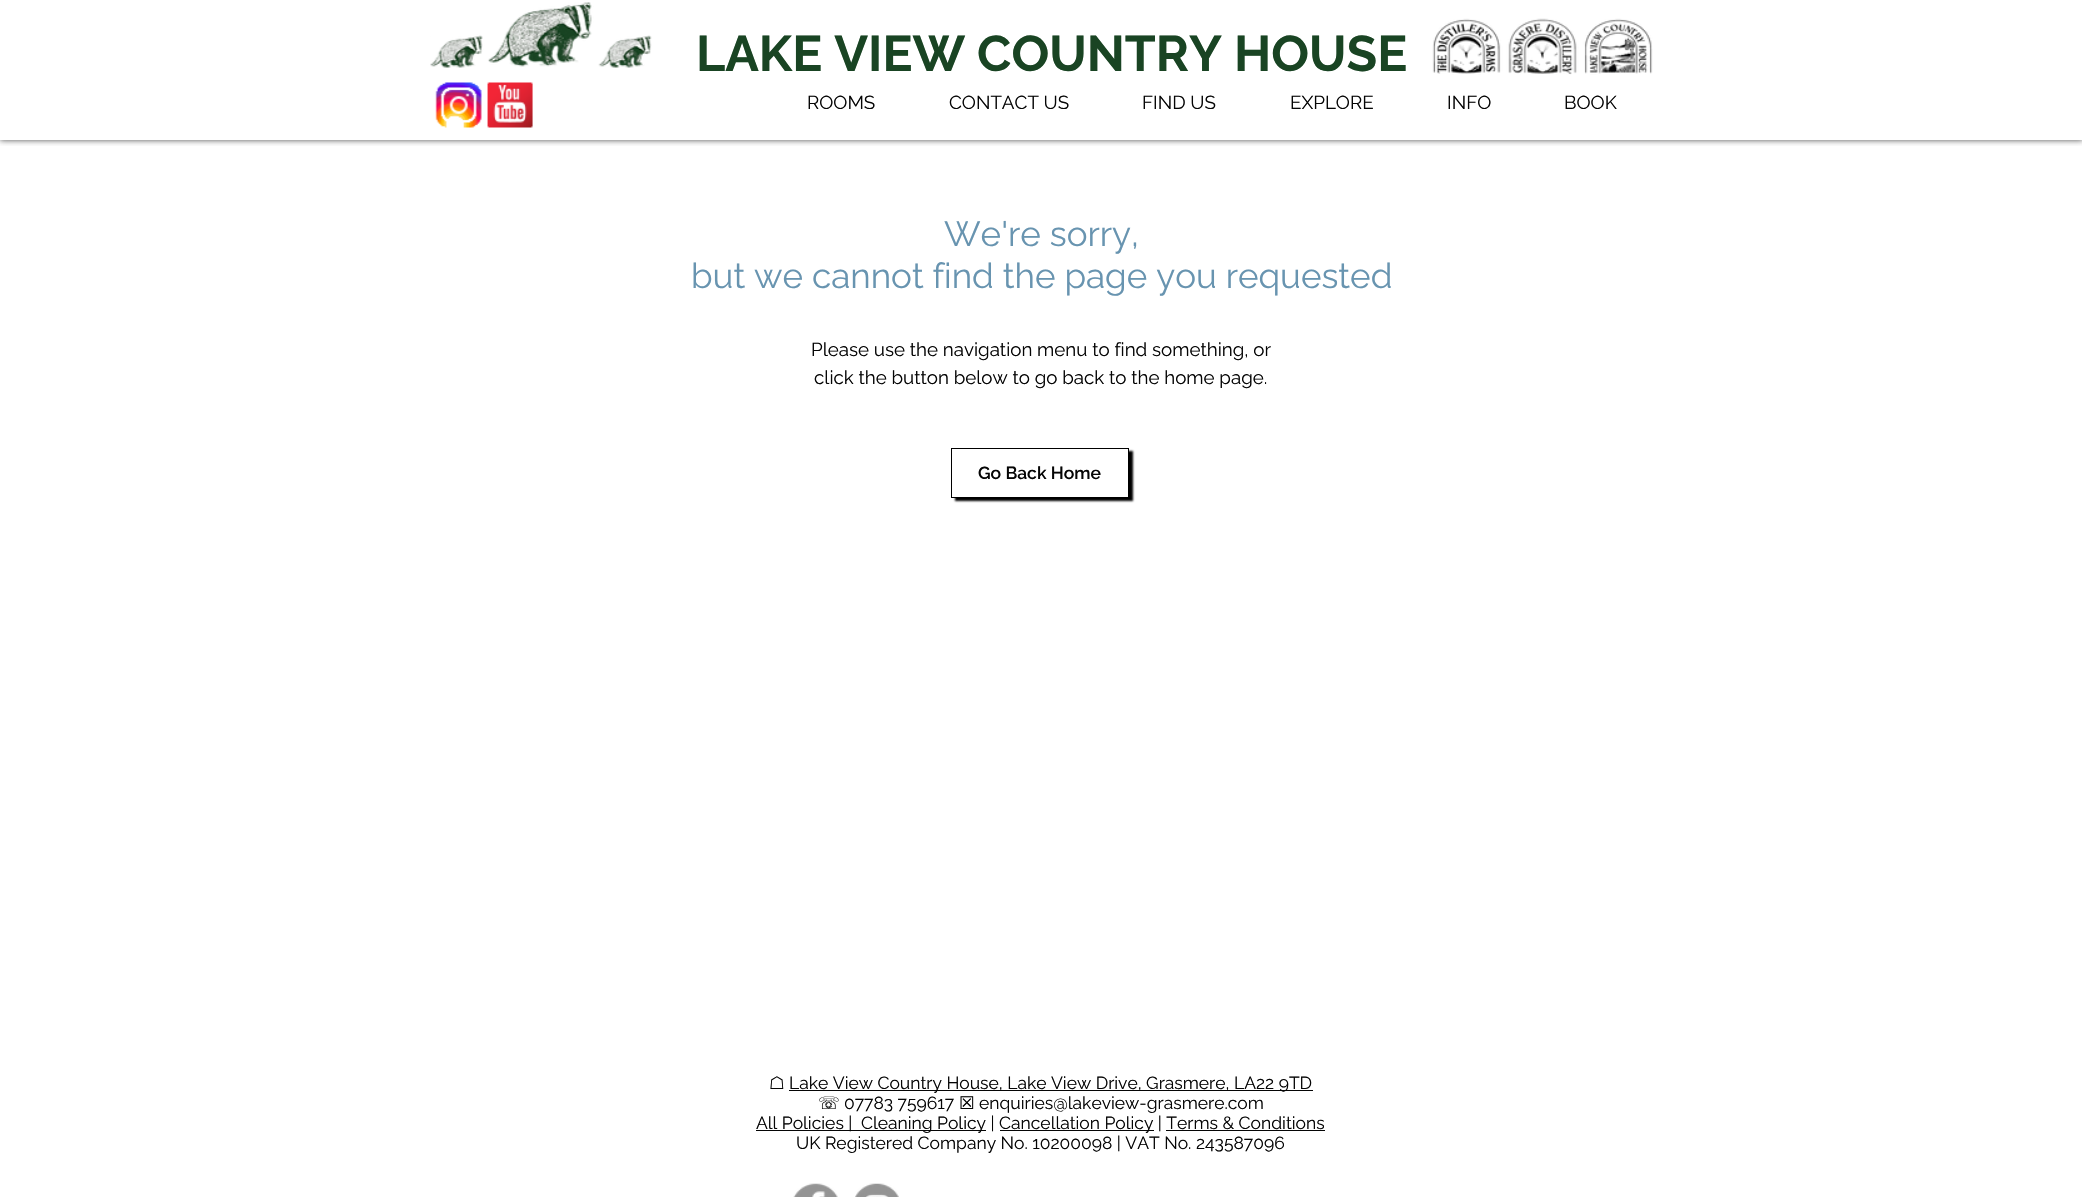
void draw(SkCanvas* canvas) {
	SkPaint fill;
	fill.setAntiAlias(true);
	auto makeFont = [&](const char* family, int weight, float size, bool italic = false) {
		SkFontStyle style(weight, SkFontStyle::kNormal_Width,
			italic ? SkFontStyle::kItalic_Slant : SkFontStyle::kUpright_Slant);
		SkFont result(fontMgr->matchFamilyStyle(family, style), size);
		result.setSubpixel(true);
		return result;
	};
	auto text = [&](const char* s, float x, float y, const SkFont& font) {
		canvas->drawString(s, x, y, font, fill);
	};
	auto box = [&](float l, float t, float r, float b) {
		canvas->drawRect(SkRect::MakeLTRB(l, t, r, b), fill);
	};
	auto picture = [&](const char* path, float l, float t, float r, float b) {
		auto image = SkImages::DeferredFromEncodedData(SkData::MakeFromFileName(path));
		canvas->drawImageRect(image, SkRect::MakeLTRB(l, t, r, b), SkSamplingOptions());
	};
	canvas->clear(0xFFFFFFFF);
	canvas->save();
	canvas->clipRect(SkRect::MakeLTRB(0, 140, 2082, 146));
	fill.setColor(0xB3000000);
	fill.setMaskFilter(SkMaskFilter::MakeBlur(kNormal_SkBlurStyle, 3));
	canvas->drawRect(SkRect::MakeLTRB(0, 0, 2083, 140), fill);
	fill.setMaskFilter(nullptr);
	canvas->restore();
	picture("image0.png", 430, 2, 652, 68);
	picture("image1.png", 1432, 18, 1653, 75);
	picture("image2.png", 435, 82, 482, 128);
	picture("image3.png", 487, 82, 533, 128);
	fill.setColor(0xFF000000);
	fill.setMaskFilter(SkMaskFilter::MakeBlur(kNormal_SkBlurStyle, 1));
	canvas->drawRect(SkRect::MakeLTRB(955, 451, 1133, 501), fill);
	fill.setMaskFilter(nullptr);
	fill.setColor(0xFFFFFFFF);
	box(953, 449, 1128, 497);
	fill.setStyle(SkPaint::kStroke_Style);
	fill.setStrokeWidth(1);
	fill.setColor(0xFF000000);
	canvas->drawRect(SkRect::MakeLTRB(951.5f, 448.5f, 1128.5f, 497.5f), fill);
	fill.setStyle(SkPaint::kFill_Style);
	fill.setColor(0xFF050505);
	box(789, 1090, 1313, 1091);
	box(756, 1130, 986, 1131);
	box(1000, 1130, 1154, 1131);
	box(1166, 1130, 1325, 1131);
	picture("image4.png", 793, 1183, 838, 1197);
	picture("image5.png", 855, 1183, 899, 1197);
	auto font1 = makeFont("Raleway", 700, 50);
	fill.setColor(0xFF194423);
	text("LAKE VIEW COUNTRY HOUSE", 696, 71, font1);
	auto font2 = makeFont("Raleway", 400, 18.75f);
	fill.setColor(0xFF050505);
	text("ROOMS", 807, 109, font2);
	text("CONTACT US", 949, 109, font2);
	text("FIND US", 1142, 109, font2);
	text("EXPLORE", 1290, 109, font2);
	text("INFO", 1447, 109, font2);
	text("BOOK", 1564, 109, font2);
	auto font3 = makeFont("Raleway", 400, 35);
	fill.setColor(0xFF6894B0);
	text("We're sorry,", 944, 246, font3);
	text("but we cannot find the page you requested", 691, 288, font3);
	fill.setColor(0xFF050505);
	text("Please use the navigation menu to find something, or", 811, 356, font2);
	text("click the button below to go back to the home page.", 814, 384, font2);
	auto font4 = makeFont("Raleway", 600, 17.5f);
	text("Go Back Home", 978, 479, font4);
	auto font5 = makeFont("DejaVu Sans", 400, 17.5f);
	text("☖", 769, 1089, font5);
	auto font6 = makeFont("Raleway", 400, 17.5f);
	text("Lake View Country House, Lake View Drive, Grasmere, LA22 9TD", 789, 1089, font6);
	text("☏", 818, 1109, font5);
	text("07783 759617", 844, 1109, font6);
	text("☒", 959, 1109, font5);
	text("enquiries@lakeview-grasmere.com", 979, 1109, font6);
	text("All Policies |", 756, 1129, font6);
	text("Cleaning Policy |", 861, 1129, font6);
	text("Cancellation Policy | Terms & Conditions", 999, 1129, font6);
	text("UK Registered Company No. 10200098 | VAT No. 243587096", 796, 1149, font6);
}
